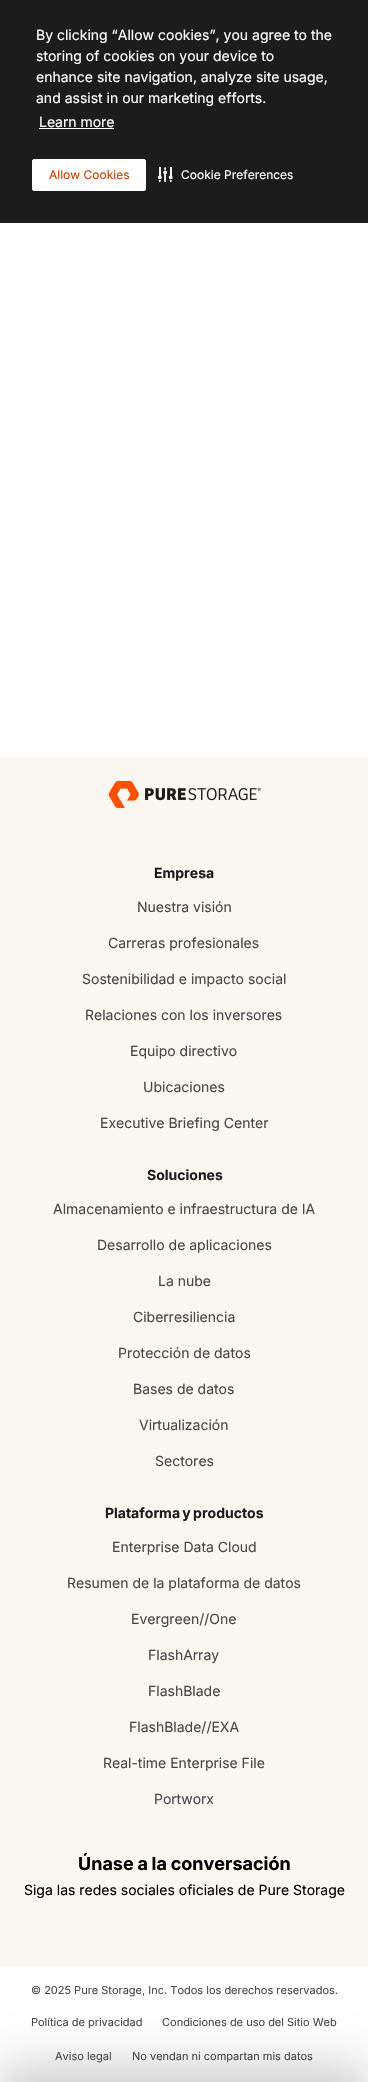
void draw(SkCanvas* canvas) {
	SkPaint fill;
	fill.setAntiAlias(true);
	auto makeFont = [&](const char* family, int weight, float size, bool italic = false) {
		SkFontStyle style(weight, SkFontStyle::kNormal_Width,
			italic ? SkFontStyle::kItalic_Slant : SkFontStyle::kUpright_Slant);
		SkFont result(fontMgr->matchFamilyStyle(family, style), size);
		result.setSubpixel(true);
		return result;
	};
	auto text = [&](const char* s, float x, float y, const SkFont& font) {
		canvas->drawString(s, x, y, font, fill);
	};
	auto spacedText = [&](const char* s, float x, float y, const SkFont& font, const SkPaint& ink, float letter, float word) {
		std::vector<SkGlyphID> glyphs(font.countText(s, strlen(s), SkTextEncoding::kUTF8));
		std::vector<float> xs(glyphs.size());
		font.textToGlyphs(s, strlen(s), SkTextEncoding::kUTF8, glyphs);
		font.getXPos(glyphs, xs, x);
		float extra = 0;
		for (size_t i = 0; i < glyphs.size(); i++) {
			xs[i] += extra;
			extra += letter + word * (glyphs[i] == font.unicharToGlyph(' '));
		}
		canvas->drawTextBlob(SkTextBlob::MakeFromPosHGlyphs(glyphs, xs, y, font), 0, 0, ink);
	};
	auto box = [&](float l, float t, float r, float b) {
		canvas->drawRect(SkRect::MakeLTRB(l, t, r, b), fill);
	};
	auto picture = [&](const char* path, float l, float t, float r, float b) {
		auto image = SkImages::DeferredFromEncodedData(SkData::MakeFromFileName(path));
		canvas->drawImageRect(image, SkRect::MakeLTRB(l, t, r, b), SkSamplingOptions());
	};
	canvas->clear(0xFFFFFFFF);
	fill.setColor(0xFF1C1C1C);
	box(0, 0, 368, 223);
	fill.setColor(0xFFFFFFFF);
	box(39, 128, 114, 129);
	canvas->drawRoundRect(SkRect::MakeLTRB(32.5f, 159.5f, 145.5f, 190.5f), 1.5f, 1.5f, fill);
	fill.setStyle(SkPaint::kStroke_Style);
	fill.setStrokeWidth(1);
	canvas->drawRoundRect(SkRect::MakeLTRB(32.5f, 159.5f, 145.5f, 190.5f), 1.5f, 1.5f, fill);
	picture("image0.png", 158, 167, 173, 182);
	fill.setStyle(SkPaint::kFill_Style);
	fill.setColor(0xFFFAF7F1);
	box(0, 757, 368, 1966);
	picture("image1.png", 108, 781, 261, 808);
	fill.setColor(0x33000000);
	fill.setMaskFilter(SkMaskFilter::MakeBlur(kNormal_SkBlurStyle, 24));
	canvas->drawRoundRect(SkRect::MakeLTRB(0, 2066, 368, 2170), 16, 16, fill);
	fill.setMaskFilter(nullptr);
	auto font1 = makeFont("Inter", 400, 14);
	fill.setColor(0xFFFFFFFF);
	text("By clicking “Allow cookies”, you agree to the", 36, 40, font1);
	text("storing of cookies on your device to", 36, 61, font1);
	text("enhance site navigation, analyze site usage,", 36, 82, font1);
	text("and assist in our marketing efforts.", 36, 103, font1);
	text("Learn more", 39, 127, font1);
	auto font2 = makeFont("Inter", 400, 12);
	fill.setColor(0xFFCC4000);
	text("Allow Cookies", 49, 179, font2);
	fill.setColor(0xFFFFFFFF);
	text("Cookie Preferences", 181, 179, font2);
	auto font3 = makeFont("Inter", 700, 14);
	fill.setColor(0xFF1C1C1C);
	text("Empresa", 154, 878, font3);
	fill.setColor(0xFF474747);
	text("Nuestra visión", 137, 912, font1);
	text("Carreras profesionales", 108, 948, font1);
	text("Sostenibilidad e impacto social", 82, 984, font1);
	text("Relaciones con los inversores", 85, 1020, font1);
	text("Equipo directivo", 130, 1056, font1);
	text("Ubicaciones", 143, 1092, font1);
	text("Executive Briefing Center", 100, 1128, font1);
	fill.setColor(0xFF1C1C1C);
	text("Soluciones", 147, 1180, font3);
	fill.setColor(0xFF474747);
	text("Almacenamiento e infraestructura de IA", 53, 1214, font1);
	text("Desarrollo de aplicaciones", 97, 1250, font1);
	text("La nube", 158, 1286, font1);
	text("Ciberresiliencia", 133, 1322, font1);
	text("Protección de datos", 118, 1358, font1);
	text("Bases de datos", 133, 1394, font1);
	text("Virtualización", 139, 1430, font1);
	text("Sectores", 155, 1466, font1);
	fill.setColor(0xFF1C1C1C);
	spacedText("Plataforma y productos", 105, 1518, font3, fill, 0, -1);
	fill.setColor(0xFF474747);
	text("Enterprise Data Cloud", 112, 1552, font1);
	text("Resumen de la plataforma de datos", 67, 1588, font1);
	text("Evergreen//One", 131, 1624, font1);
	text("FlashArray", 148, 1660, font1);
	text("FlashBlade", 148, 1696, font1);
	text("FlashBlade//EXA", 129, 1732, font1);
	text("Real-time Enterprise File", 103, 1768, font1);
	text("Portworx", 154, 1804, font1);
	auto font4 = makeFont("Inter", 700, 18);
	fill.setColor(0xFF000000);
	spacedText("Únase a la conversación", 78, 1870, font4, fill, 0, -0.5f);
	text("Siga las redes sociales oficiales de Pure Storage", 24, 1895, font1);
	auto font5 = makeFont("Inter", 400, 11);
	fill.setColor(0xFF474747);
	text("© 2025 Pure Storage, Inc. Todos los derechos reservados.", 31, 1994, font5);
	text("Política de privacidad", 31, 2026, font5);
	text("Condiciones de uso del Sitio Web", 162, 2026, font5);
	text("Aviso legal", 55, 2060, font5);
	text("No vendan ni compartan mis datos", 132, 2060, font5);
}
